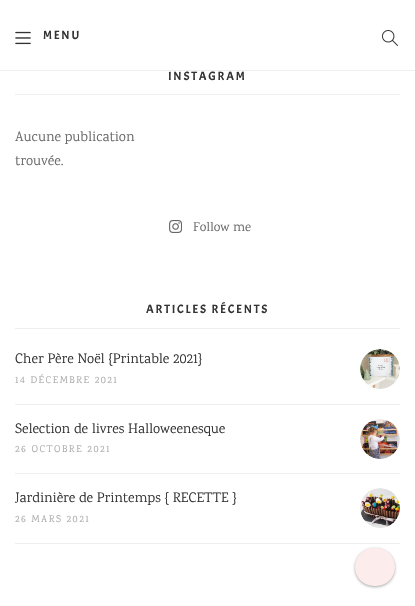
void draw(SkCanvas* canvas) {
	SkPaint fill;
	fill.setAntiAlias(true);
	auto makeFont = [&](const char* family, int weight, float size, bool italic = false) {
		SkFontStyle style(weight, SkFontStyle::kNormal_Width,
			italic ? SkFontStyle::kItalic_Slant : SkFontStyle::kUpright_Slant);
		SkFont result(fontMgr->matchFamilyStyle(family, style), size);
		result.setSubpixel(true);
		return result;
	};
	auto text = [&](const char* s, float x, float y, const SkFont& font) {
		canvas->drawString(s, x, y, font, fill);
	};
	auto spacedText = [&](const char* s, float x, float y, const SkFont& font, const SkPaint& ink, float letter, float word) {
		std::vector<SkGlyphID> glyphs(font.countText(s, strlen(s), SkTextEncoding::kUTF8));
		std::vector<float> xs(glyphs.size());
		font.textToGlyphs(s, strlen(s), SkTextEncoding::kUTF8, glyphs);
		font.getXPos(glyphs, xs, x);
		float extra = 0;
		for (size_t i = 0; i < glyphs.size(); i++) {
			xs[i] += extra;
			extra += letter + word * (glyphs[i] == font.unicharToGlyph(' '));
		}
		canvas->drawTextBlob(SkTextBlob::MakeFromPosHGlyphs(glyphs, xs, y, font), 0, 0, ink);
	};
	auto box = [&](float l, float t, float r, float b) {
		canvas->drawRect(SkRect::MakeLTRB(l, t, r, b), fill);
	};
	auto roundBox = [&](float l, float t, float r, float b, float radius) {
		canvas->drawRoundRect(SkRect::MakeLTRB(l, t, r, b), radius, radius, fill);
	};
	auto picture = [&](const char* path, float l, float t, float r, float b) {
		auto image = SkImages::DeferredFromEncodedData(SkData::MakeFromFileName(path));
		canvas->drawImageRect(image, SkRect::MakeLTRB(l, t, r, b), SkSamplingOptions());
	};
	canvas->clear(0xFFFFFFFF);
	fill.setColor(0xFFEEEEEE);
	box(0, 70, 415, 71);
	picture("image0.png", 15, 31, 31, 45);
	picture("image1.png", 382, 30, 398, 46);
	box(15, 94, 400, 95);
	picture("image2.png", 169, 220, 182, 233);
	box(15, 328, 400, 329);
	box(15, 404, 400, 405);
	picture("image3.png", 360, 349, 400, 389);
	box(15, 473, 400, 474);
	picture("image4.png", 360, 419, 400, 459);
	box(15, 543, 400, 544);
	picture("image5.png", 360, 488, 400, 528);
	fill.setColor(0x66222222);
	fill.setMaskFilter(SkMaskFilter::MakeBlur(kNormal_SkBlurStyle, 1.5f));
	canvas->drawRoundRect(SkRect::MakeLTRB(355, 549, 395, 587), 19, 19, fill);
	fill.setMaskFilter(nullptr);
	fill.setColor(0xFFFCEDEC);
	roundBox(355, 548, 395, 586, 19);
	auto font1 = makeFont("Acme", 400, 12);
	fill.setColor(0xFF333333);
	spacedText("MENU", 43, 39, font1, fill, 1.75f, 0);
	spacedText("INSTAGRAM", 168, 80, font1, fill, 1.75f, 0);
	auto font2 = makeFont("Karma", 400, 14);
	fill.setColor(0xFF686868);
	text("Aucune publication", 15, 141, font2);
	text("trouvée.", 15, 165, font2);
	auto font3 = makeFont("Karma", 400, 13);
	text("Follow me", 193, 231, font3);
	fill.setColor(0xFF333333);
	spacedText("ARTICLES RÉCENTS", 146, 313, font1, fill, 1.75f, 0);
	text("Cher Père Noël {Printable 2021}", 15, 363, font2);
	auto font4 = makeFont("Karma", 400, 10);
	fill.setColor(0xFFAAAAAA);
	spacedText("14 DÉCEMBRE 2021", 15, 383, font4, fill, 1.5f, 0);
	fill.setColor(0xFF333333);
	text("Selection de livres Halloweenesque", 15, 433, font2);
	fill.setColor(0xFFAAAAAA);
	spacedText("26 OCTOBRE 2021", 15, 452, font4, fill, 1.5f, 0);
	fill.setColor(0xFF333333);
	text("Jardinière de Printemps { RECETTE }", 15, 502, font2);
	fill.setColor(0xFFAAAAAA);
	spacedText("26 MARS 2021", 15, 522, font4, fill, 1.5f, 0);
}
